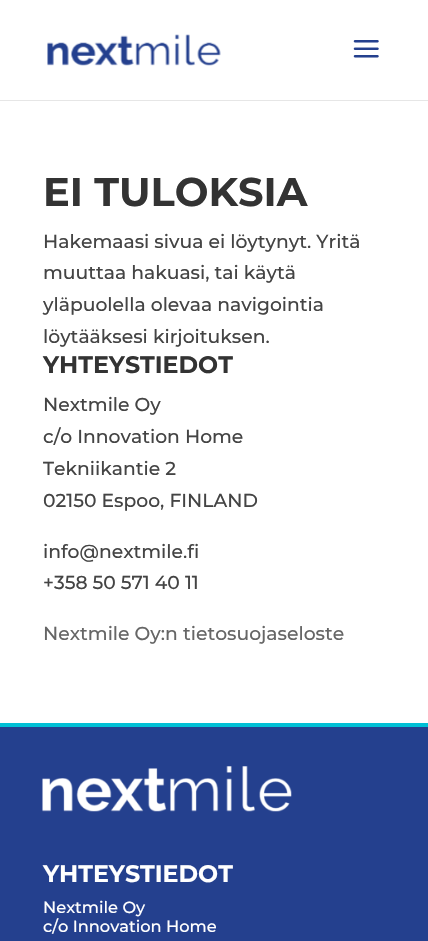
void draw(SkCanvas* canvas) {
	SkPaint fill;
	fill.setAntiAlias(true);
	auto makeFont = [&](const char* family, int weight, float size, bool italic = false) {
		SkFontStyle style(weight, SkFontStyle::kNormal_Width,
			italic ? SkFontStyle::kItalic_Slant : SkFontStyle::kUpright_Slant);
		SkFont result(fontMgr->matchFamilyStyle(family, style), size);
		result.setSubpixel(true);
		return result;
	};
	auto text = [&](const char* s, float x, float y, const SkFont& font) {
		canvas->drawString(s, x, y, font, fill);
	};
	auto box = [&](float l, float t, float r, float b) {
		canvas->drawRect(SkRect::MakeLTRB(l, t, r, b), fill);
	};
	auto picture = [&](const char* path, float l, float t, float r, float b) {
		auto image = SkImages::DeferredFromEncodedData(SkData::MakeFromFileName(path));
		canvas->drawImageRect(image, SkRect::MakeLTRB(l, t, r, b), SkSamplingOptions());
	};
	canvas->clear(0xFFFFFFFF);
	fill.setColor(0xFFE6E6E6);
	canvas->drawPath(SkPathBuilder().moveTo(0, 100).lineTo(0, 101).lineTo(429, 101).lineTo(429, 1).lineTo(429, 100).close().detach(), fill);
	picture("image0.png", 47, 34, 221, 66);
	picture("image1.png", 353, 40, 379, 58);
	fill.setColor(0xFF24408E);
	box(0, 727, 428, 941);
	fill.setColor(0xFF00C0D6);
	box(0, 723, 428, 727);
	picture("image2.png", 42, 766, 292, 812);
	auto font1 = makeFont("Montserrat", 700, 40);
	fill.setColor(0xFF333333);
	text("EI TULOKSIA", 43, 206, font1);
	auto font2 = makeFont("Montserrat", 500, 18.75f);
	fill.setColor(0xFF444444);
	text("Hakemaasi sivua ei löytynyt. Yritä", 43, 248, font2);
	text("muuttaa hakuasi, tai käytä", 43, 279, font2);
	text("yläpuolella olevaa navigointia", 43, 311, font2);
	text("löytääksesi kirjoituksen.", 43, 343, font2);
	auto font3 = makeFont("Montserrat", 700, 23.75f);
	fill.setColor(0xFF333333);
	text("YHTEYSTIEDOT", 43, 373, font3);
	fill.setColor(0xFF444444);
	text("Nextmile Oy", 43, 411, font2);
	text("c/o Innovation Home", 43, 443, font2);
	text("Tekniikantie 2", 43, 475, font2);
	text("02150 Espoo, FINLAND", 43, 507, font2);
	text("info@nextmile.fi", 43, 558, font2);
	text("+358 50 571 40 11", 43, 589, font2);
	fill.setColor(0xFF666666);
	text("Nextmile Oy:n tietosuojaseloste", 43, 640, font2);
	fill.setColor(0xFFFFFFFF);
	text("YHTEYSTIEDOT", 43, 882, font3);
	auto font4 = makeFont("Montserrat", 500, 16.25f);
	text("Nextmile Oy", 43, 913, font4);
	text("c/o Innovation Home", 43, 932, font4);
}
